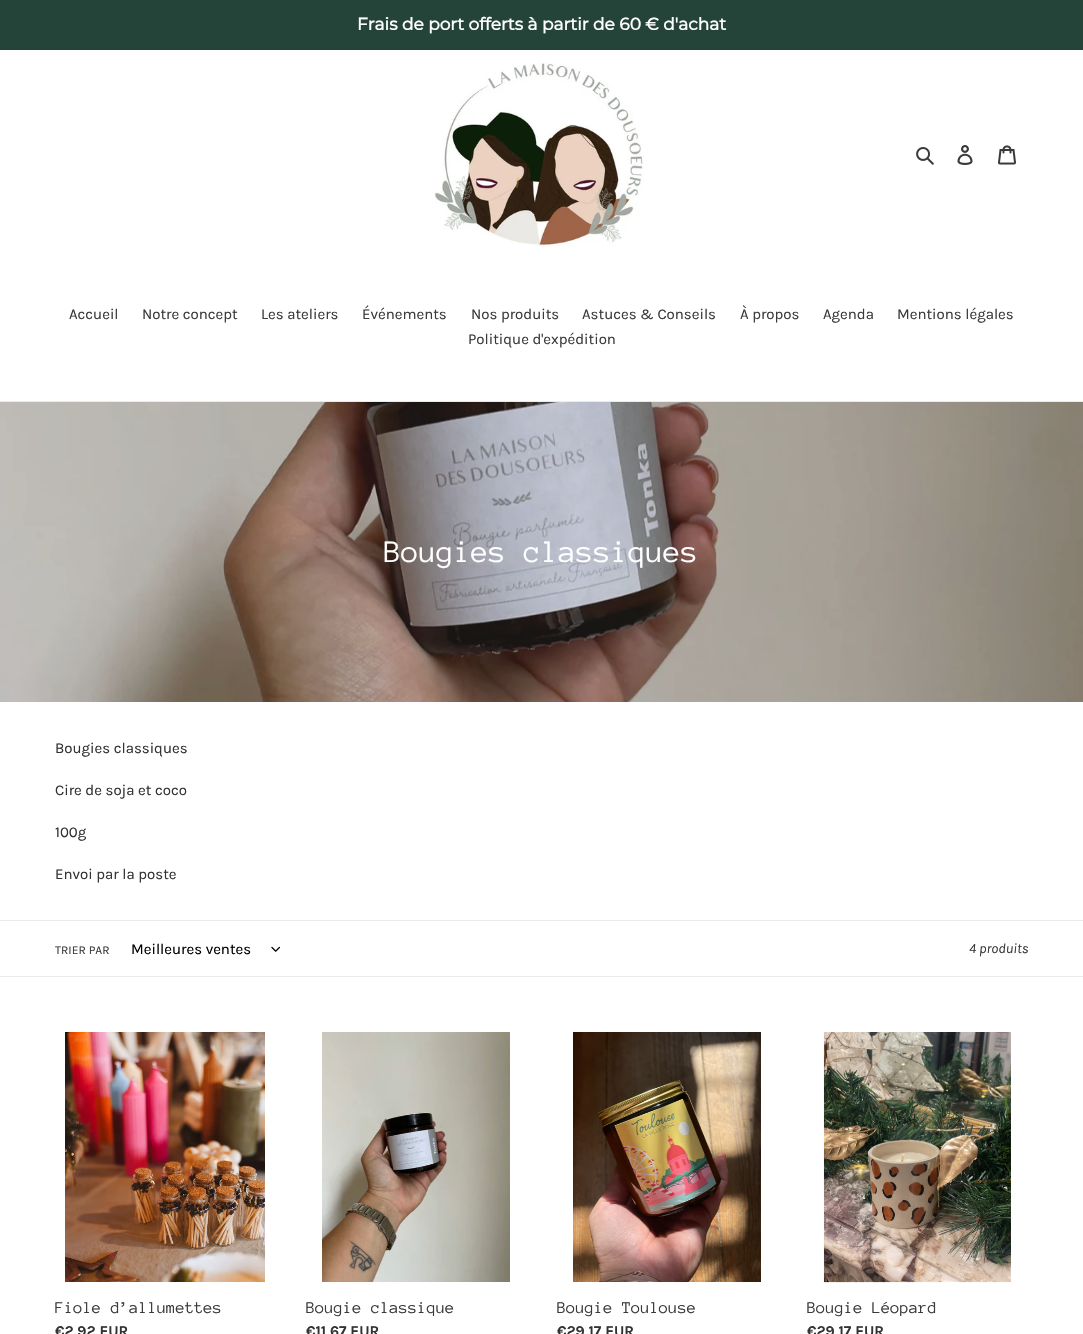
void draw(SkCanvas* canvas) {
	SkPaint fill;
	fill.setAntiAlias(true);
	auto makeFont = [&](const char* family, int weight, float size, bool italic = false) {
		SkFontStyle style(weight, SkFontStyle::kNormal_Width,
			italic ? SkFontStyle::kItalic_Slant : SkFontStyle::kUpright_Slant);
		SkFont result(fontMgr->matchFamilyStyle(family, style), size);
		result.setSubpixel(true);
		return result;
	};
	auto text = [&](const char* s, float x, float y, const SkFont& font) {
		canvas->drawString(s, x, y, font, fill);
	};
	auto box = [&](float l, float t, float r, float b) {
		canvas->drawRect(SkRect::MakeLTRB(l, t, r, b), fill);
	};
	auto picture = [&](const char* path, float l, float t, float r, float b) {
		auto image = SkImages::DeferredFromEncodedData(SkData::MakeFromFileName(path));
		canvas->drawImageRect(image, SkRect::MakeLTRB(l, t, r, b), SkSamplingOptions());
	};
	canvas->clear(0xFFFFFFFF);
	fill.setColor(0xFF244439);
	box(0, 0, 1083, 50);
	picture("image0.png", 434, 63, 644, 247);
	picture("image1.png", 916, 147, 934, 165);
	picture("image2.png", 957, 145, 973, 165);
	picture("image3.png", 998, 145, 1016, 165);
	fill.setColor(0xFFEBEBEB);
	box(0, 401, 1083, 402);
	picture("image4.png", 0, 402, 1083, 702);
	box(0, 920, 1083, 921);
	box(0, 976, 1083, 977);
	picture("image5.png", 271, 946, 280, 952);
	picture("image6.png", 65, 1032, 265, 1282);
	picture("image7.png", 322, 1032, 510, 1282);
	picture("image8.png", 573, 1032, 761, 1282);
	picture("image9.png", 823, 1032, 1011, 1283);
	auto font1 = makeFont("Montserrat", 700, 17);
	fill.setColor(0xFFFFFFFF);
	text("Frais de port offerts à partir de 60 € d'achat", 357, 30, font1);
	auto font2 = makeFont("Karla", 400, 15);
	fill.setColor(0xFF3A3A3A);
	text("Accueil", 69, 319, font2);
	text("Notre concept", 142, 319, font2);
	text("Les ateliers", 261, 319, font2);
	text("Événements", 362, 319, font2);
	text("Nos produits", 471, 319, font2);
	text("Astuces & Conseils", 582, 319, font2);
	text("À propos", 740, 319, font2);
	text("Agenda", 823, 319, font2);
	text("Mentions légales", 897, 319, font2);
	text("Politique d'expédition", 468, 344, font2);
	auto font3 = makeFont("Anonymous Pro", 400, 32);
	fill.setColor(0xFFFFFFFF);
	text("Bougies classiques", 384, 562, font3);
	fill.setColor(0xFF333232);
	text("Bougies classiques", 55, 753, font2);
	text("Cire de soja et coco", 55, 795, font2);
	text("100g", 55, 837, font2);
	text("Envoi par la poste", 55, 879, font2);
	auto font4 = makeFont("Karla", 400, 12);
	fill.setColor(0xFF3A3A3A);
	text("TRIER PAR", 55, 954, font4);
	fill.setColor(0xFF000000);
	text("Meilleures ventes", 131, 954, font2);
	auto font5 = makeFont("Karla", 400, 14, true);
	fill.setColor(0xFF3A3A3A);
	text("4 produits", 969, 953, font5);
	auto font6 = makeFont("Anonymous Pro", 400, 17);
	text("Fiole d’allumettes", 55, 1313, font6);
	auto font7 = makeFont("Karla", 700, 15);
	fill.setColor(0xFF333232);
	text("€2,92 EUR", 55, 1336, font7);
	fill.setColor(0xFF3A3A3A);
	text("Bougie classique", 306, 1313, font6);
	fill.setColor(0xFF333232);
	text("€11,67 EUR", 306, 1336, font7);
	fill.setColor(0xFF3A3A3A);
	text("Bougie Toulouse", 557, 1313, font6);
	fill.setColor(0xFF333232);
	text("€29,17 EUR", 557, 1336, font7);
	fill.setColor(0xFF3A3A3A);
	text("Bougie Léopard", 807, 1313, font6);
	fill.setColor(0xFF333232);
	text("€29,17 EUR", 807, 1336, font7);
}
